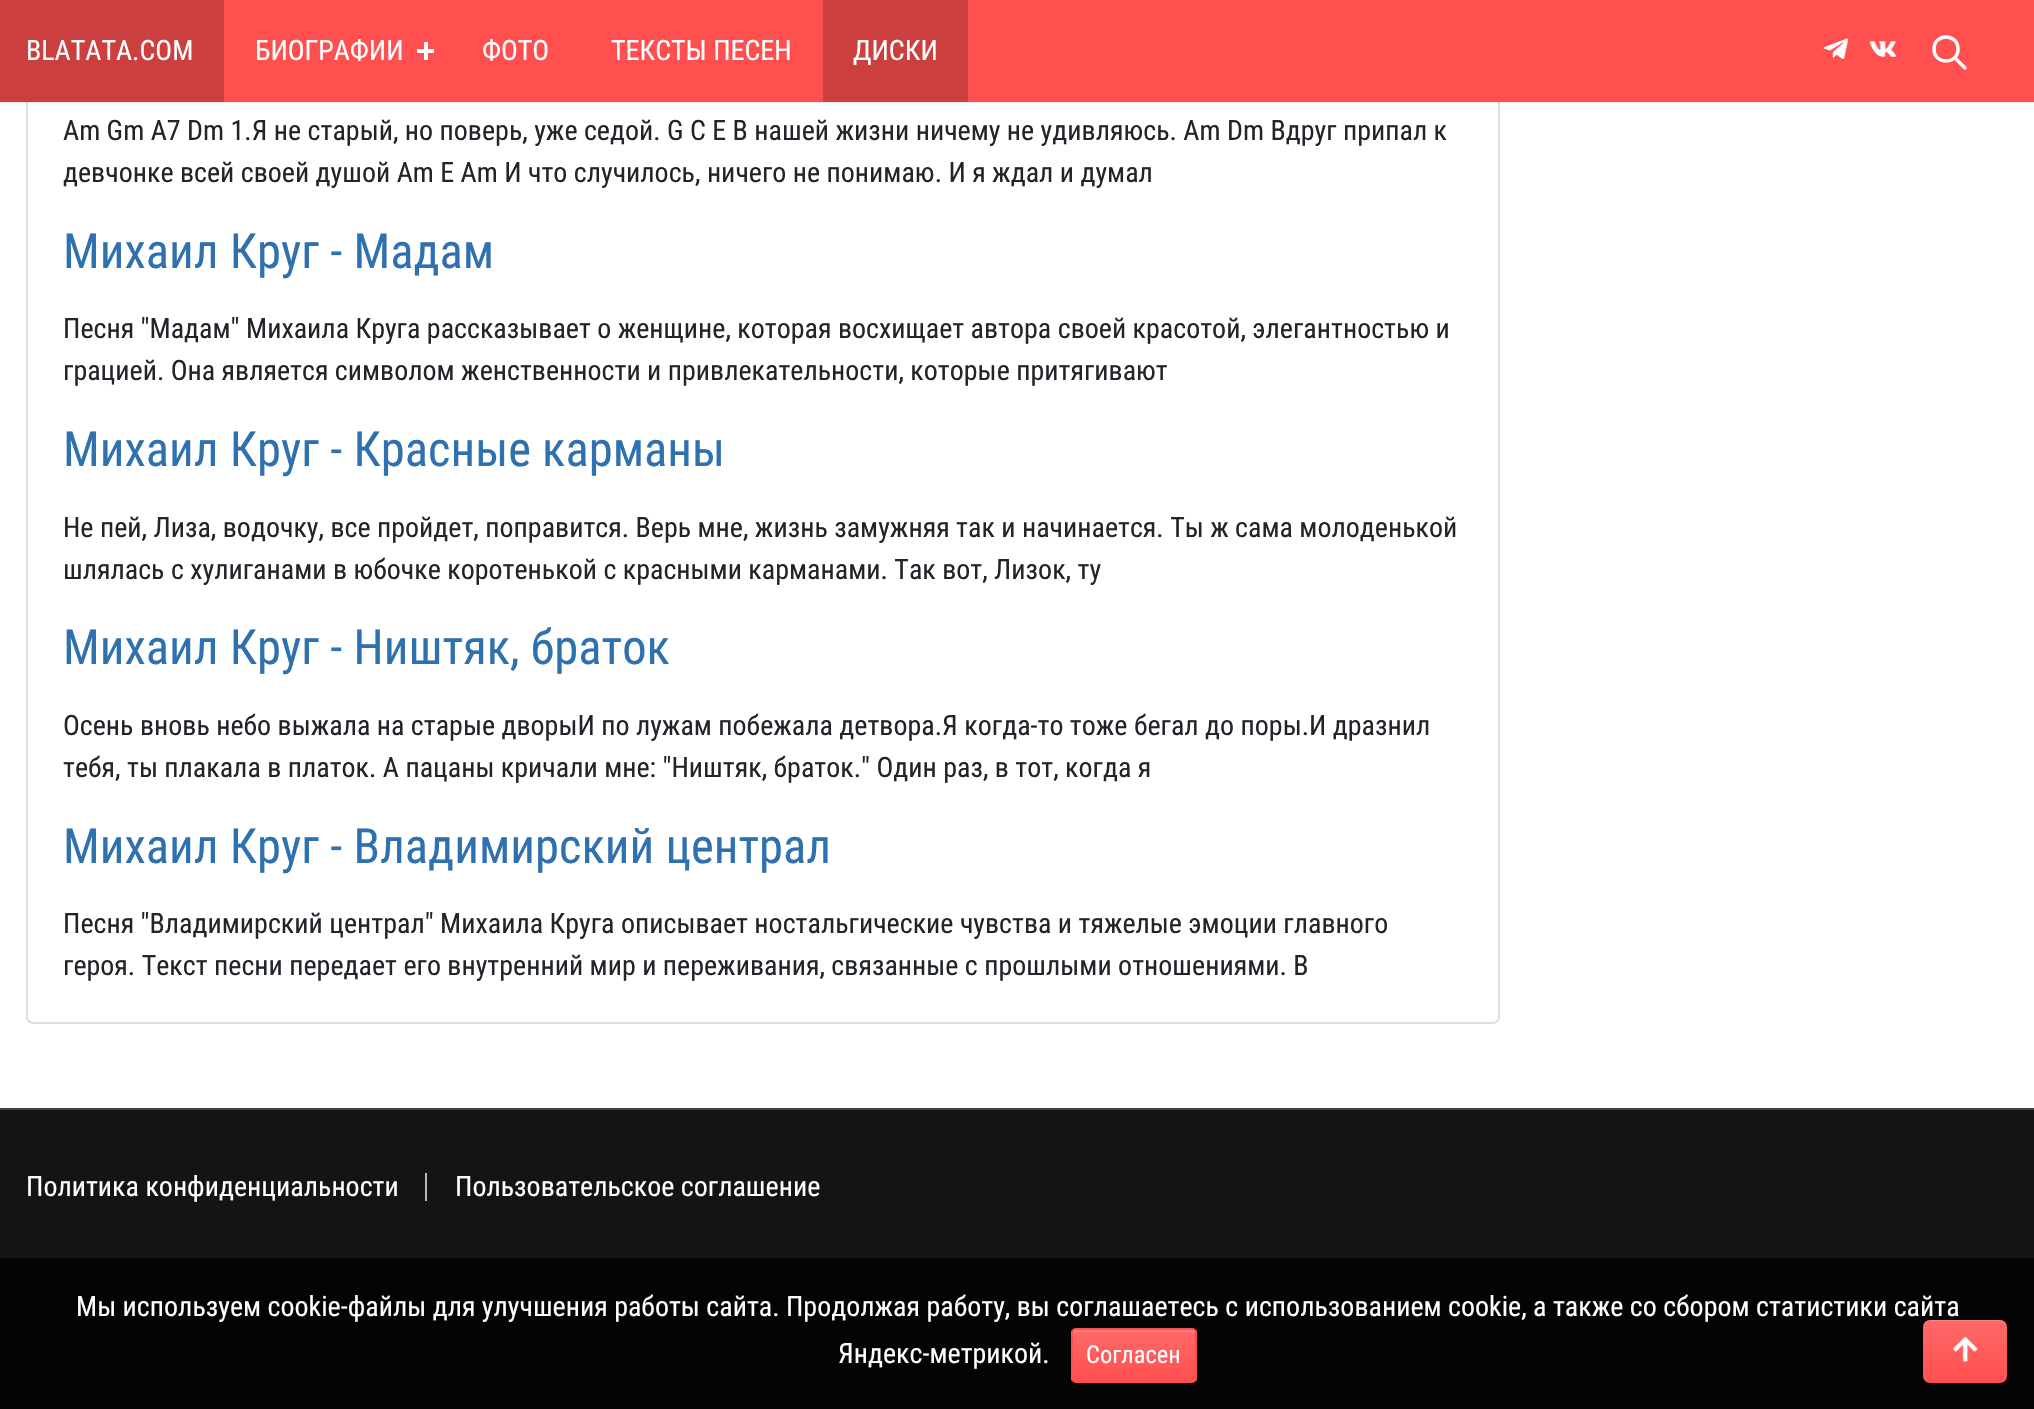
void draw(SkCanvas* canvas) {
	SkPaint fill;
	fill.setAntiAlias(true);
	auto makeFont = [&](const char* family, int weight, float size, bool italic = false) {
		SkFontStyle style(weight, SkFontStyle::kNormal_Width,
			italic ? SkFontStyle::kItalic_Slant : SkFontStyle::kUpright_Slant);
		SkFont result(fontMgr->matchFamilyStyle(family, style), size);
		result.setSubpixel(true);
		return result;
	};
	auto text = [&](const char* s, float x, float y, const SkFont& font) {
		canvas->drawString(s, x, y, font, fill);
	};
	auto box = [&](float l, float t, float r, float b) {
		canvas->drawRect(SkRect::MakeLTRB(l, t, r, b), fill);
	};
	auto roundBox = [&](float l, float t, float r, float b, float radius) {
		canvas->drawRoundRect(SkRect::MakeLTRB(l, t, r, b), radius, radius, fill);
	};
	auto picture = [&](const char* path, float l, float t, float r, float b) {
		auto image = SkImages::DeferredFromEncodedData(SkData::MakeFromFileName(path));
		canvas->drawImageRect(image, SkRect::MakeLTRB(l, t, r, b), SkSamplingOptions());
	};
	canvas->clear(0xFFFFFFFF);
	fill.setStyle(SkPaint::kStroke_Style);
	fill.setStrokeWidth(2);
	fill.setColor(0xFFDFDFDF);
	canvas->drawRoundRect(SkRect::MakeLTRB(27, -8, 1499, 1023), 6, 6, fill);
	fill.setStyle(SkPaint::kFill_Style);
	fill.setColor(0x33000000);
	fill.setMaskFilter(SkMaskFilter::MakeBlur(kNormal_SkBlurStyle, 1));
	canvas->drawRect(SkRect::MakeLTRB(0, 0, 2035, 102), fill);
	fill.setMaskFilter(nullptr);
	fill.setColor(0xFFFF4F4F);
	box(224, 0, 2034, 102);
	fill.setColor(0xFFCC3F3F);
	box(0, 0, 224, 102);
	fill.setColor(0xFFFFFFFF);
	box(424, 42, 428, 60);
	box(417, 49, 434, 53);
	fill.setColor(0xFFCC3F3F);
	box(823, 0, 968, 102);
	picture("image0.png", 1823, 38, 1849, 59);
	picture("image1.png", 1869, 41, 1897, 57);
	fill.setStyle(SkPaint::kStroke_Style);
	fill.setStrokeWidth(3.5f);
	fill.setStrokeCap(SkPaint::kRound_Cap);
	fill.setStrokeJoin(SkPaint::kRound_Join);
	fill.setColor(0xFFFFFFFF);
	canvas->drawPath(SkPathBuilder().moveTo(1965, 68).lineTo(1955, 58).moveTo(1958, 49).cubicTo(1958, 65, 1934, 65, 1934, 49).cubicTo(1934, 33, 1958, 33, 1958, 49).close().detach(), fill);
	fill.setStyle(SkPaint::kFill_Style);
	fill.setColor(0xFF141414);
	box(0, 1110, 2034, 1409);
	fill.setColor(0xFF434343);
	box(0, 1108, 2034, 1110);
	fill.setColor(0xFFB9B9B9);
	box(425, 1173, 427, 1201);
	fill.setColor(0xCC000000);
	box(0, 1258, 2034, 1409);
	canvas->save();
	canvas->clipPath(SkPathBuilder().moveTo(1076, 1328).lineTo(1192, 1328).cubicTo(1195, 1328, 1197, 1330, 1197, 1333).lineTo(1197, 1378).cubicTo(1197, 1381, 1195, 1383, 1192, 1383).lineTo(1076, 1383).cubicTo(1073, 1383, 1071, 1381, 1071, 1378).lineTo(1071, 1333).cubicTo(1071, 1330, 1073, 1328, 1076, 1328).close().detach(), true);
	{
		const SkColor colors[] = {0xFFFF6969, 0xFFFF4F4F};
		const float stops[] = {0, 1};
		const SkPoint ends[] = {{1134, 1330}, {1134, 1381}};
		fill.setShader(SkGradientShader::MakeLinear(ends, colors, stops, 2, SkTileMode::kClamp));
		fill.setAlpha(255);
	}
	box(1071, 1330, 1197, 1381);
	canvas->restore();
	fill.setShader(nullptr);
	fill.setColor(0xFFFF7F7F);
	canvas->drawPath(SkPathBuilder().moveTo(1077, 1332).lineTo(1191, 1332).cubicTo(1194, 1332, 1195, 1333, 1195, 1336).lineTo(1195, 1334).cubicTo(1195, 1332, 1193, 1330, 1191, 1330).lineTo(1077, 1330).cubicTo(1075, 1330, 1073, 1332, 1073, 1334).lineTo(1073, 1336).cubicTo(1073, 1333, 1074, 1332, 1077, 1332).close().detach(), fill);
	fill.setStyle(SkPaint::kStroke_Style);
	fill.setStrokeWidth(2);
	fill.setStrokeCap(SkPaint::kButt_Cap);
	fill.setStrokeJoin(SkPaint::kMiter_Join);
	fill.setColor(0xFFFF4F4F);
	canvas->drawRoundRect(SkRect::MakeLTRB(1072, 1329, 1196, 1382), 4, 4, fill);
	auto font1 = makeFont("Roboto Condensed", 400, 28);
	fill.setStyle(SkPaint::kFill_Style);
	fill.setColor(0xFFFFFFFF);
	text("BLATATA.COM", 26, 60, font1);
	text("БИОГРАФИИ", 255, 60, font1);
	text("ФОТО", 482, 60, font1);
	text("ТЕКСТЫ ПЕСЕН", 611, 60, font1);
	text("ДИСКИ", 853, 60, font1);
	fill.setColor(0xFF212529);
	text("Am Gm A7 Dm 1.Я не старый, но поверь, уже седой. G C E В нашей жизни ничему не удивляюсь. Am Dm Вдруг припал к", 63, 140, font1);
	text("девчонке всей своей душой Am E Am И что случилось, ничего не понимаю. И я ждал и думал", 63, 182, font1);
	auto font2 = makeFont("Roboto Condensed", 400, 48.6f);
	fill.setColor(0xFF2F70AF);
	text("Михаил Круг - Мадам", 63, 268, font2);
	fill.setColor(0xFF212529);
	text("Песня \"Мадам\" Михаила Круга рассказывает о женщине, которая восхищает автора своей красотой, элегантностью и", 63, 338, font1);
	text("грацией. Она является символом женственности и привлекательности, которые притягивают", 63, 380, font1);
	fill.setColor(0xFF2F70AF);
	text("Михаил Круг - Красные карманы", 63, 466, font2);
	fill.setColor(0xFF212529);
	text("Не пей, Лиза, водочку, все пройдет, поправится. Верь мне, жизнь замужняя так и начинается. Ты ж сама молоденькой", 63, 537, font1);
	text("шлялась с хулиганами в юбочке коротенькой с красными карманами. Так вот, Лизок, ту", 63, 579, font1);
	fill.setColor(0xFF2F70AF);
	text("Михаил Круг - Ништяк, браток", 63, 664, font2);
	fill.setColor(0xFF212529);
	text("Осень вновь небо выжала на старые дворыИ по лужам побежала детвора.Я когда-то тоже бегал до поры.И дразнил", 63, 735, font1);
	text("тебя, ты плакала в платок. А пацаны кричали мне: \"Hиштяк, браток.\" Один раз, в тот, когда я", 63, 777, font1);
	fill.setColor(0xFF2F70AF);
	text("Михаил Круг - Владимирский централ", 63, 863, font2);
	fill.setColor(0xFF212529);
	text("Песня \"Владимирский централ\" Михаила Круга описывает ностальгические чувства и тяжелые эмоции главного", 63, 933, font1);
	text("героя. Текст песни передает его внутренний мир и переживания, связанные с прошлыми отношениями. В", 63, 975, font1);
	fill.setColor(0xFFFFFFFF);
	text("Политика конфиденциальности", 26, 1196, font1);
	text("Пользовательское соглашение", 455, 1196, font1);
	text("Мы используем cookie-файлы для улучшения работы сайта. Продолжая работу, вы соглашаетесь с использованием cookie, а также со сбором статистики сайта", 76, 1316, font1);
	text("Яндекс-метрикой.", 838, 1363, font1);
	auto font3 = makeFont("Roboto Condensed", 400, 24.5f);
	text("Согласен", 1086, 1363, font3);
	{
		const SkColor colors[] = {0xFFFF6969, 0xFFFF4F4F};
		const float stops[] = {0, 1};
		const SkPoint ends[] = {{1965, 1320}, {1965, 1383}};
		fill.setShader(SkGradientShader::MakeLinear(ends, colors, stops, 2, SkTileMode::kClamp));
		fill.setAlpha(255);
	}
	roundBox(1923, 1320, 2007, 1383, 7);
	fill.setShader(nullptr);
	fill.setColor(0x26FFFFFF);
	canvas->drawPath(SkPathBuilder().moveTo(1930, 1321).lineTo(2000, 1321).cubicTo(2004, 1321, 2007, 1324, 2007, 1328).cubicTo(2007, 1317, 1996, 1320, 1988, 1320).lineTo(1942, 1320).cubicTo(1934, 1320, 1923, 1317, 1923, 1328).cubicTo(1923, 1324, 1926, 1321, 1930, 1321).close().detach(), fill);
	picture("image2.png", 1953, 1336, 1978, 1363);
}
